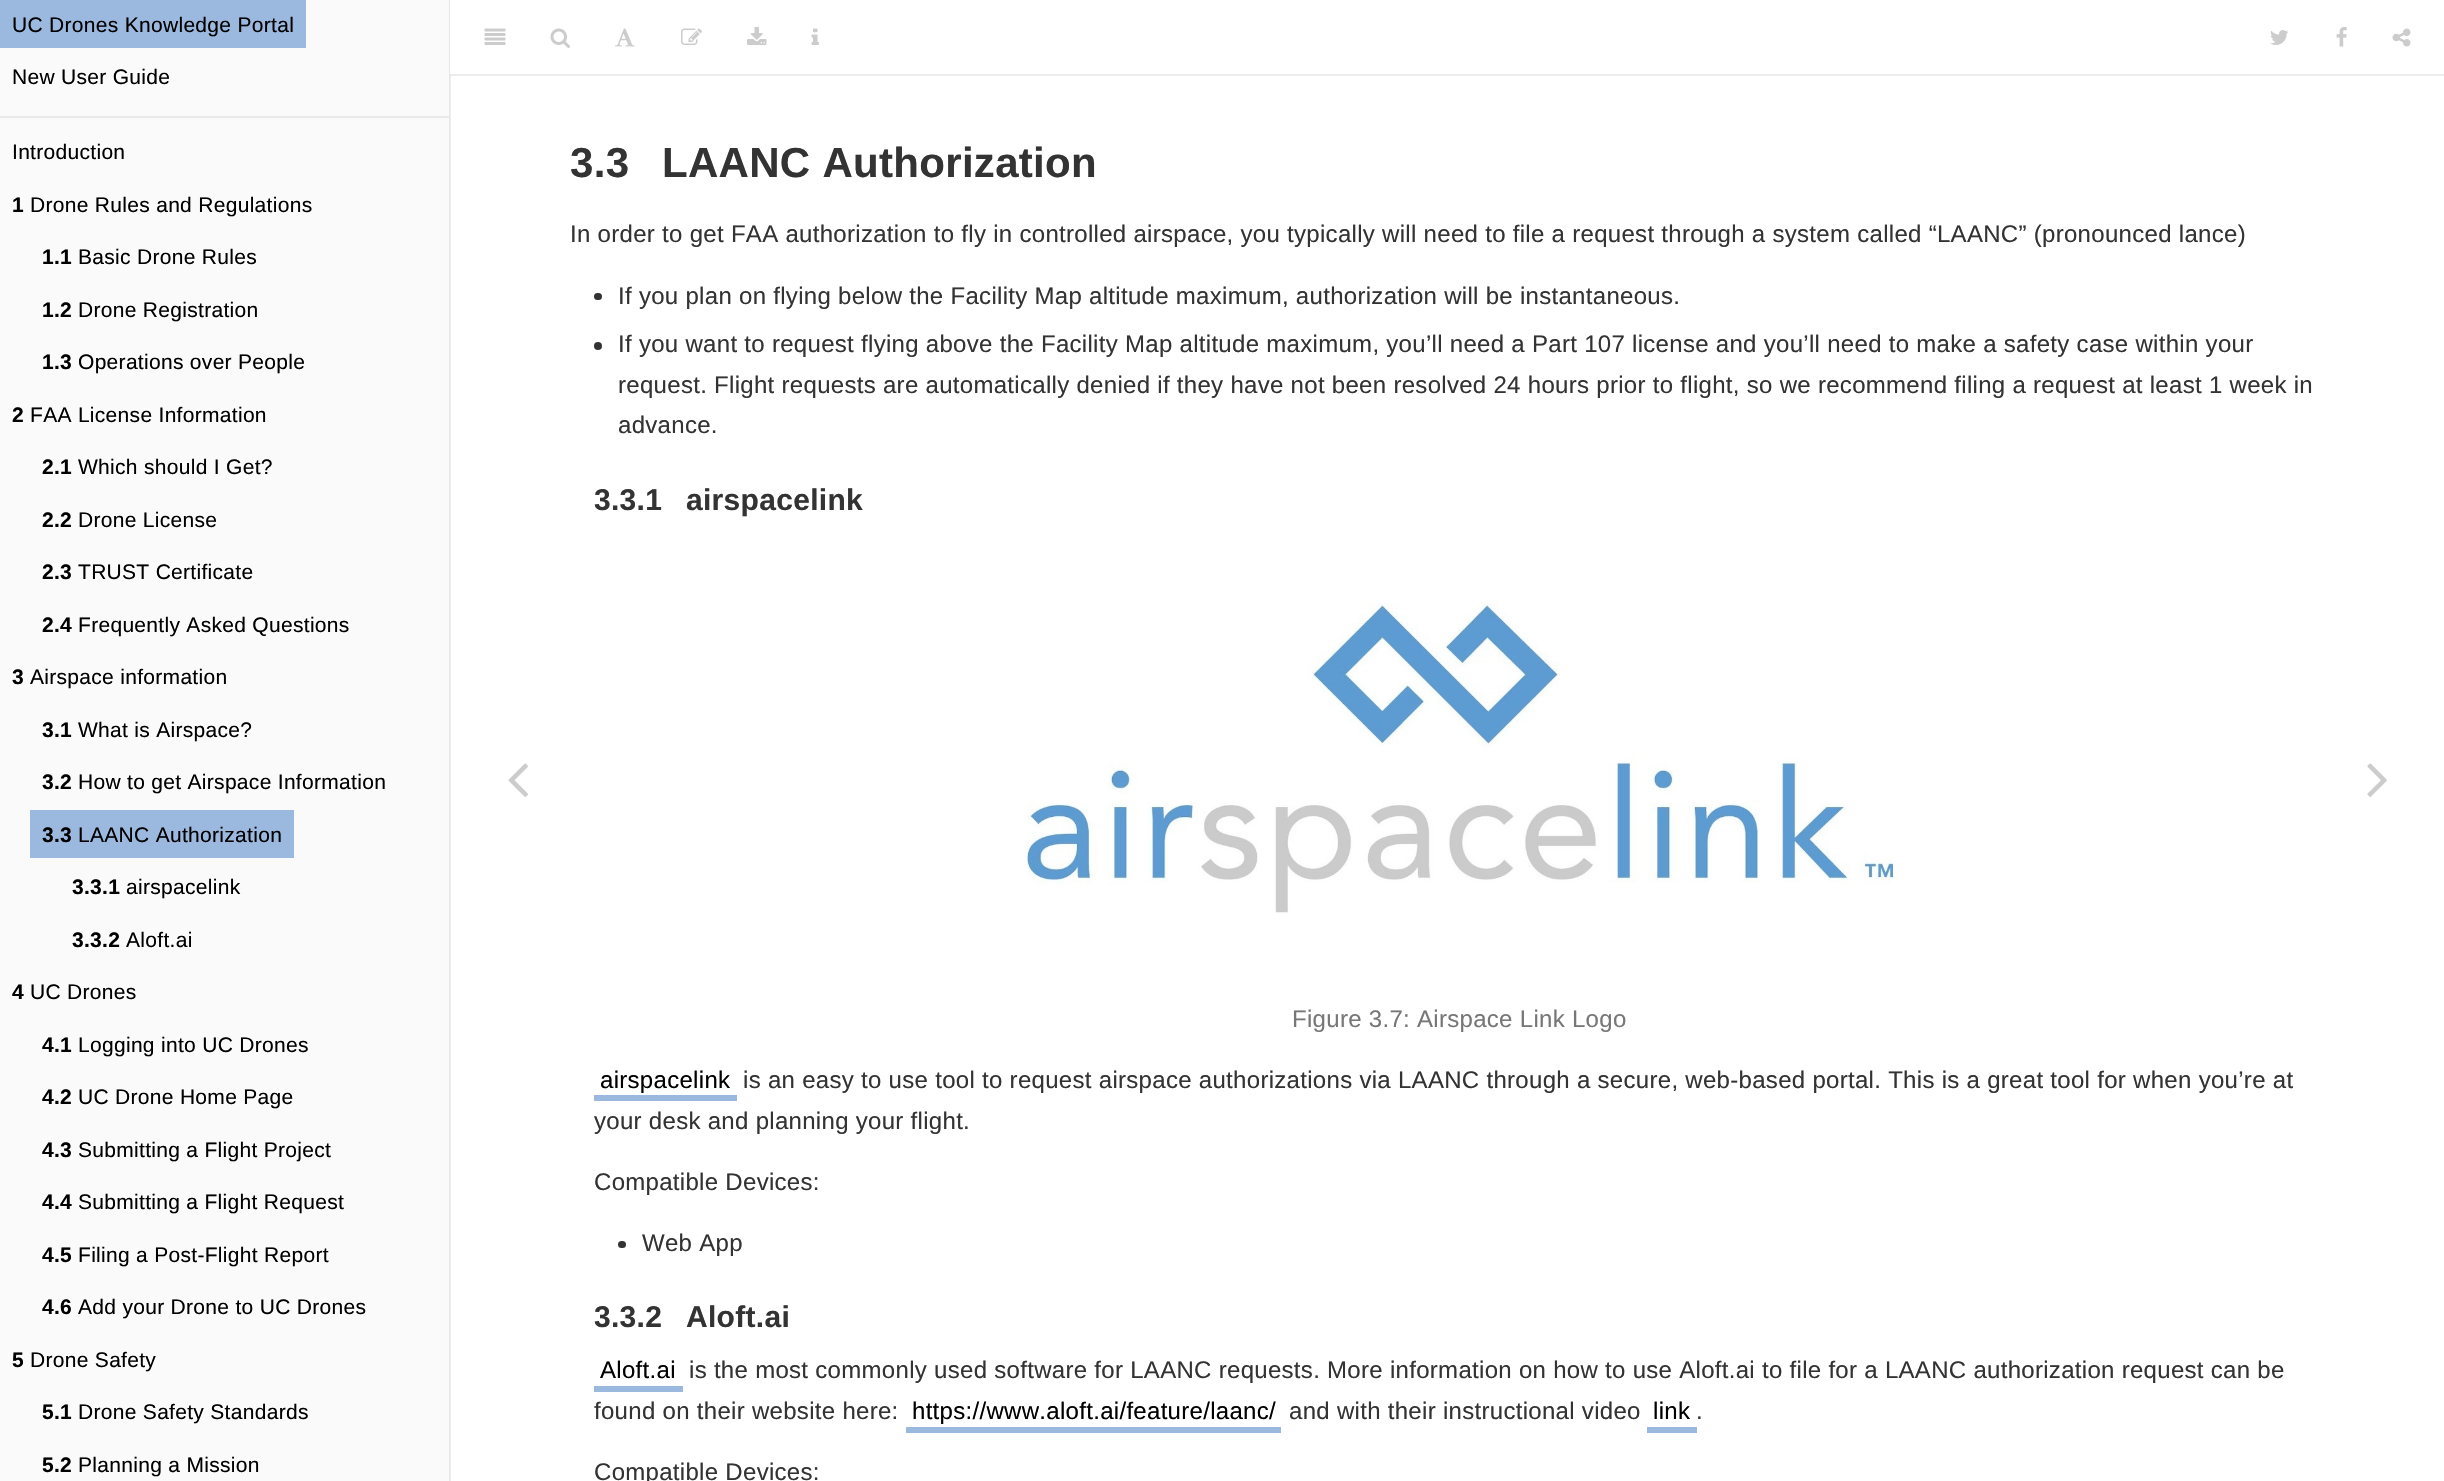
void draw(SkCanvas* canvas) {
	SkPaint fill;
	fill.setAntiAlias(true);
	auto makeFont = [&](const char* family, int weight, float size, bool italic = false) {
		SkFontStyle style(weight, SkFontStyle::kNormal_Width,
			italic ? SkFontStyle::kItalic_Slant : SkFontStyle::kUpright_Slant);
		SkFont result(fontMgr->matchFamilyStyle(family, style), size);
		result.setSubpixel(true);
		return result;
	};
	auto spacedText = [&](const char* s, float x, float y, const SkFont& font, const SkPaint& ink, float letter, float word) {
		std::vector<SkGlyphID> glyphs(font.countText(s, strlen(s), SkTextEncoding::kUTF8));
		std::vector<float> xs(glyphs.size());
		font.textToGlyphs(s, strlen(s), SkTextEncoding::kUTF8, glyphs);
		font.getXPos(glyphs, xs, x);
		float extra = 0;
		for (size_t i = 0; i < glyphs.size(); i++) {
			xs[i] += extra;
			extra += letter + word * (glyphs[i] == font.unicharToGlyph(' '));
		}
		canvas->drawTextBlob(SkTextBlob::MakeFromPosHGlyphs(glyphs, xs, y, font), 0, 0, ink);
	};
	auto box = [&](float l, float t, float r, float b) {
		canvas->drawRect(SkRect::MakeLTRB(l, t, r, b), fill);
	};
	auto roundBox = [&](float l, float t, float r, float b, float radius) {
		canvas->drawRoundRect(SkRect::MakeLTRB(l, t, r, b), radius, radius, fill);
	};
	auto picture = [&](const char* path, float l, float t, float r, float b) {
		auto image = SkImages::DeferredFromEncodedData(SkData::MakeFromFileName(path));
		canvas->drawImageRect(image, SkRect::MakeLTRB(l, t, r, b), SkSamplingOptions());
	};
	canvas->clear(0xFFFFFFFF);
	fill.setColor(0xFFEDEDED);
	box(450, 75, 2444, 76);
	box(450, 76, 451, 1481);
	fill.setColor(0xFFDCDCDC);
	box(450, 74, 451, 76);
	fill.setColor(0xFFFAFAFA);
	box(0, 0, 449, 1481);
	fill.setColor(0xFFE8E8E8);
	box(449, 0, 450, 1481);
	fill.setColor(0xFF9BB9DF);
	box(0, 0, 306, 48);
	fill.setColor(0xFFE9E9E9);
	box(0, 116, 449, 118);
	fill.setColor(0xFF9BB9DF);
	box(30, 810, 294, 858);
	picture("image0.png", 508, 763, 528, 797);
	fill.setColor(0xFFEDEDED);
	box(450, 74, 2444, 75);
	picture("image1.png", 484, 28, 506, 45);
	picture("image2.png", 550, 28, 570, 48);
	picture("image3.png", 615, 28, 635, 47);
	picture("image4.png", 681, 28, 702, 45);
	picture("image5.png", 747, 27, 767, 45);
	picture("image6.png", 811, 28, 819, 45);
	picture("image7.png", 2270, 30, 2288, 45);
	picture("image8.png", 2336, 27, 2347, 47);
	picture("image9.png", 2392, 28, 2411, 47);
	fill.setColor(0xFF333333);
	roundBox(594, 293, 602, 300, 3.5f);
	canvas->drawCircle(598, 346, 4, fill);
	picture("image10.png", 1027, 602, 1893, 913);
	fill.setColor(0xFF9BB9DF);
	box(594, 1095, 737, 1101);
	fill.setColor(0xFF333333);
	roundBox(618, 1241, 626, 1248, 3.5f);
	fill.setColor(0xFF9BB9DF);
	box(594, 1386, 683, 1392);
	box(906, 1427, 1281, 1433);
	box(1647, 1427, 1697, 1433);
	picture("image11.png", 2367, 763, 2387, 797);
	auto font1 = makeFont("Liberation Sans", 400, 21);
	fill.setColor(0xFF000000);
	spacedText("UC Drones Knowledge Portal", 12, 32, font1, fill, 0.3f, 0);
	spacedText("New User Guide", 12, 84, font1, fill, 0.3f, 0);
	spacedText("Introduction", 12, 159, font1, fill, 0.3f, 0);
	auto font2 = makeFont("Liberation Sans", 700, 21);
	spacedText("1", 12, 212, font2, fill, 0.3f, 0);
	spacedText("Drone Rules and Regulations", 30, 212, font1, fill, 0.3f, 0);
	spacedText("1.1", 42, 264, font2, fill, 0.3f, 0);
	spacedText("Basic Drone Rules", 78, 264, font1, fill, 0.3f, 0);
	spacedText("1.2", 42, 317, font2, fill, 0.3f, 0);
	spacedText("Drone Registration", 78, 317, font1, fill, 0.3f, 0);
	spacedText("1.3", 42, 369, font2, fill, 0.3f, 0);
	spacedText("Operations over People", 78, 369, font1, fill, 0.3f, 0);
	spacedText("2", 12, 422, font2, fill, 0.3f, 0);
	spacedText("FAA License Information", 30, 422, font1, fill, 0.3f, 0);
	spacedText("2.1", 42, 474, font2, fill, 0.3f, 0);
	spacedText("Which should I Get?", 78, 474, font1, fill, 0.3f, 0);
	spacedText("2.2", 42, 527, font2, fill, 0.3f, 0);
	spacedText("Drone License", 78, 527, font1, fill, 0.3f, 0);
	spacedText("2.3", 42, 579, font2, fill, 0.3f, 0);
	spacedText("TRUST Certificate", 78, 579, font1, fill, 0.3f, 0);
	spacedText("2.4", 42, 632, font2, fill, 0.3f, 0);
	spacedText("Frequently Asked Questions", 78, 632, font1, fill, 0.3f, 0);
	spacedText("3", 12, 684, font2, fill, 0.3f, 0);
	spacedText("Airspace information", 30, 684, font1, fill, 0.3f, 0);
	spacedText("3.1", 42, 737, font2, fill, 0.3f, 0);
	spacedText("What is Airspace?", 78, 737, font1, fill, 0.3f, 0);
	spacedText("3.2", 42, 789, font2, fill, 0.3f, 0);
	spacedText("How to get Airspace Information", 78, 789, font1, fill, 0.3f, 0);
	spacedText("3.3", 42, 842, font2, fill, 0.3f, 0);
	spacedText("LAANC Authorization", 78, 842, font1, fill, 0.3f, 0);
	spacedText("3.3.1", 72, 894, font2, fill, 0.3f, 0);
	spacedText("airspacelink", 126, 894, font1, fill, 0.3f, 0);
	spacedText("3.3.2", 72, 947, font2, fill, 0.3f, 0);
	spacedText("Aloft.ai", 126, 947, font1, fill, 0.3f, 0);
	spacedText("4", 12, 999, font2, fill, 0.3f, 0);
	spacedText("UC Drones", 30, 999, font1, fill, 0.3f, 0);
	spacedText("4.1", 42, 1052, font2, fill, 0.3f, 0);
	spacedText("Logging into UC Drones", 78, 1052, font1, fill, 0.3f, 0);
	spacedText("4.2", 42, 1104, font2, fill, 0.3f, 0);
	spacedText("UC Drone Home Page", 78, 1104, font1, fill, 0.3f, 0);
	spacedText("4.3", 42, 1157, font2, fill, 0.3f, 0);
	spacedText("Submitting a Flight Project", 78, 1157, font1, fill, 0.3f, 0);
	spacedText("4.4", 42, 1209, font2, fill, 0.3f, 0);
	spacedText("Submitting a Flight Request", 78, 1209, font1, fill, 0.3f, 0);
	spacedText("4.5", 42, 1262, font2, fill, 0.3f, 0);
	spacedText("Filing a Post-Flight Report", 78, 1262, font1, fill, 0.3f, 0);
	spacedText("4.6", 42, 1314, font2, fill, 0.3f, 0);
	spacedText("Add your Drone to UC Drones", 78, 1314, font1, fill, 0.3f, 0);
	spacedText("5", 12, 1367, font2, fill, 0.3f, 0);
	spacedText("Drone Safety", 30, 1367, font1, fill, 0.3f, 0);
	spacedText("5.1", 42, 1419, font2, fill, 0.3f, 0);
	spacedText("Drone Safety Standards", 78, 1419, font1, fill, 0.3f, 0);
	spacedText("5.2", 42, 1472, font2, fill, 0.3f, 0);
	spacedText("Planning a Mission", 78, 1472, font1, fill, 0.3f, 0);
	auto font3 = makeFont("Liberation Sans", 700, 42);
	fill.setColor(0xFF333333);
	spacedText("3.3", 570, 177, font3, fill, 0.3f, 0);
	spacedText("LAANC Authorization", 662, 177, font3, fill, 0.3f, 0);
	auto font4 = makeFont("Liberation Sans", 400, 24);
	spacedText("In order to get FAA authorization to fly in controlled airspace, you typically will need to file a request through a system called “LAANC” (pronounced lance)", 570, 242, font4, fill, 0.3f, 0);
	spacedText("If you plan on flying below the Facility Map altitude maximum, authorization will be instantaneous.", 618, 304, font4, fill, 0.3f, 0);
	spacedText("If you want to request flying above the Facility Map altitude maximum, you’ll need a Part 107 license and you’ll need to make a safety case within your", 618, 352, font4, fill, 0.3f, 0);
	spacedText("request. Flight requests are automatically denied if they have not been resolved 24 hours prior to flight, so we recommend filing a request at least 1 week in", 618, 393, font4, fill, 0.3f, 0);
	spacedText("advance.", 618, 433, font4, fill, 0.3f, 0);
	auto font5 = makeFont("Liberation Sans", 700, 30);
	spacedText("3.3.1", 594, 510, font5, fill, 0.3f, 0);
	spacedText("airspacelink", 686, 510, font5, fill, 0.3f, 0);
	fill.setColor(0xFF777777);
	spacedText("Figure 3.7: Airspace Link Logo", 1292, 1027, font4, fill, 0.3f, 0);
	fill.setColor(0xFF000000);
	spacedText("airspacelink", 600, 1088, font4, fill, 0.3f, 0);
	fill.setColor(0xFF333333);
	spacedText("is an easy to use tool to request airspace authorizations via LAANC through a secure, web-based portal. This is a great tool for when you’re at", 743, 1088, font4, fill, 0.3f, 0);
	spacedText("your desk and planning your flight.", 594, 1129, font4, fill, 0.3f, 0);
	spacedText("Compatible Devices:", 594, 1190, font4, fill, 0.3f, 0);
	spacedText("Web App", 642, 1251, font4, fill, 0.3f, 0);
	spacedText("3.3.2", 594, 1327, font5, fill, 0.3f, 0);
	spacedText("Aloft.ai", 686, 1327, font5, fill, 0.3f, 0);
	fill.setColor(0xFF000000);
	spacedText("Aloft.ai", 600, 1378, font4, fill, 0.3f, 0);
	fill.setColor(0xFF333333);
	spacedText("is the most commonly used software for LAANC requests. More information on how to use Aloft.ai to file for a LAANC authorization request can be", 689, 1378, font4, fill, 0.3f, 0);
	spacedText("found on their website here:", 594, 1419, font4, fill, 0.3f, 0);
	fill.setColor(0xFF000000);
	spacedText("https://www.aloft.ai/feature/laanc/", 912, 1419, font4, fill, 0.3f, 0);
	fill.setColor(0xFF333333);
	spacedText("and with their instructional video", 1289, 1419, font4, fill, 0.3f, 0);
	fill.setColor(0xFF000000);
	spacedText("link", 1653, 1419, font4, fill, 0.3f, 0);
	fill.setColor(0xFF333333);
	spacedText(".", 1696, 1419, font4, fill, 0.3f, 0);
	spacedText("Compatible Devices:", 594, 1480, font4, fill, 0.3f, 0);
}
